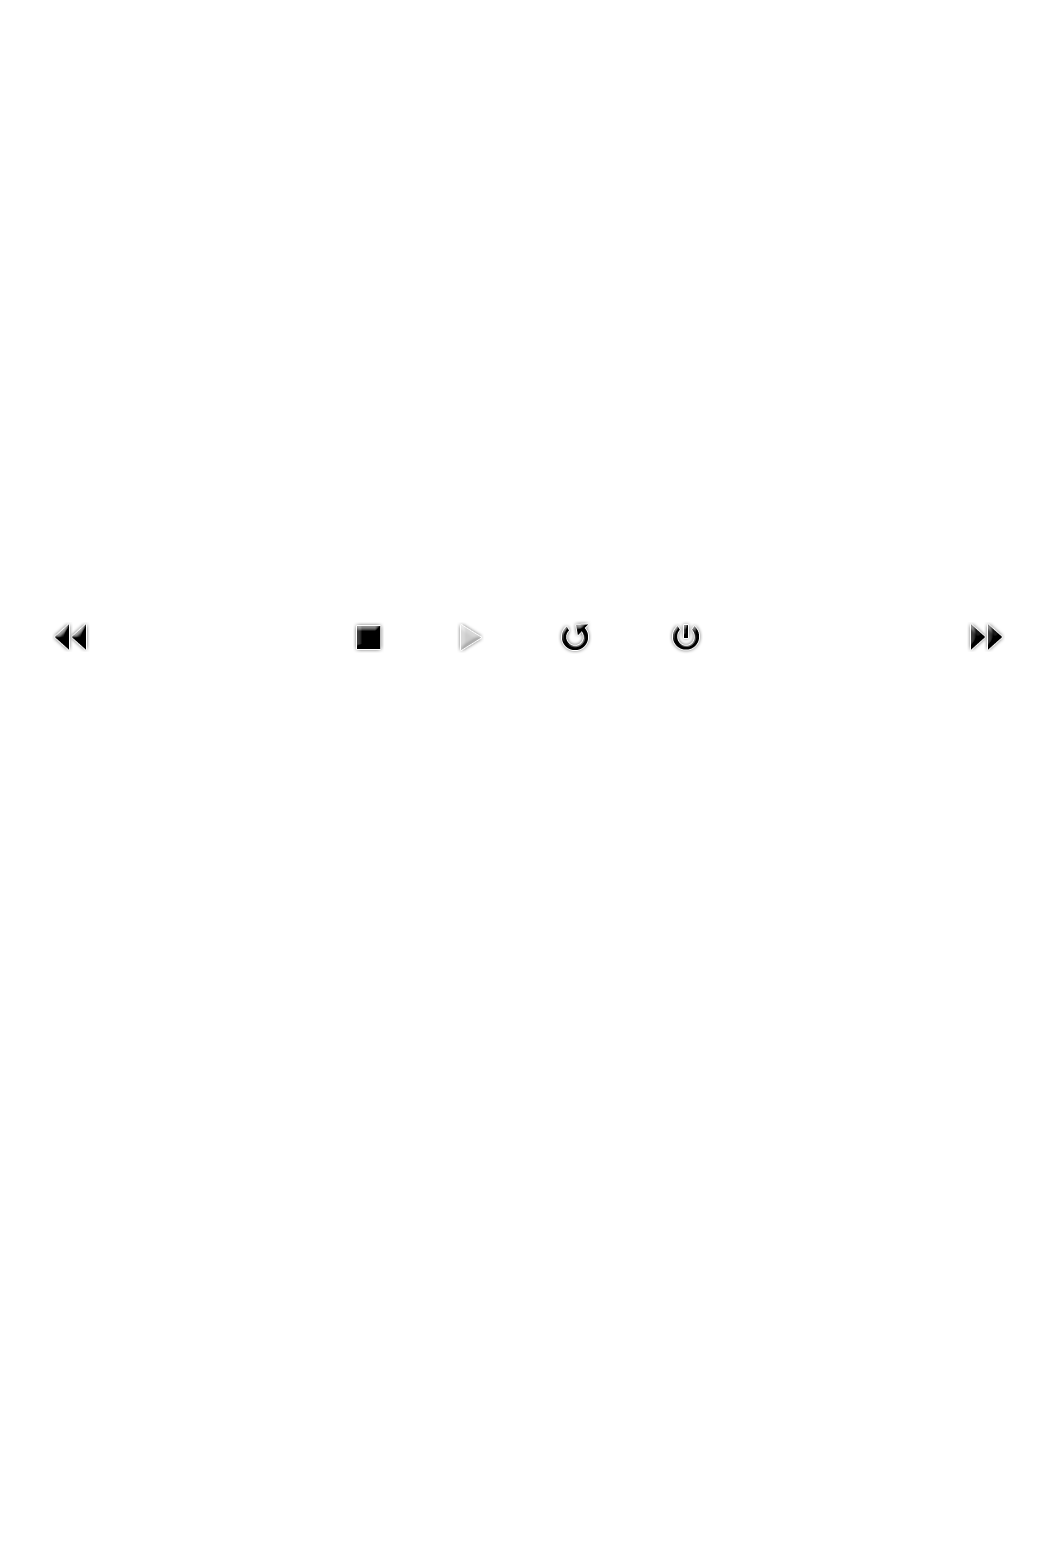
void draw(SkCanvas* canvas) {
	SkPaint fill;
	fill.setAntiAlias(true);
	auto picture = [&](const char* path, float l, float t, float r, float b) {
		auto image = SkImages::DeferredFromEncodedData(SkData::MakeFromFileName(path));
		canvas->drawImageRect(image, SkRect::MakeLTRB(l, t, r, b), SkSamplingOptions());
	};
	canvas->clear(0xFFFFFFFF);
	picture("image0.png", 52, 622, 90, 652);
	picture("image1.png", 353, 622, 384, 653);
	picture("image2.png", 457, 622, 484, 653);
	picture("image3.png", 558, 620, 592, 654);
	picture("image4.png", 669, 621, 703, 654);
	picture("image5.png", 967, 622, 1005, 652);
}
